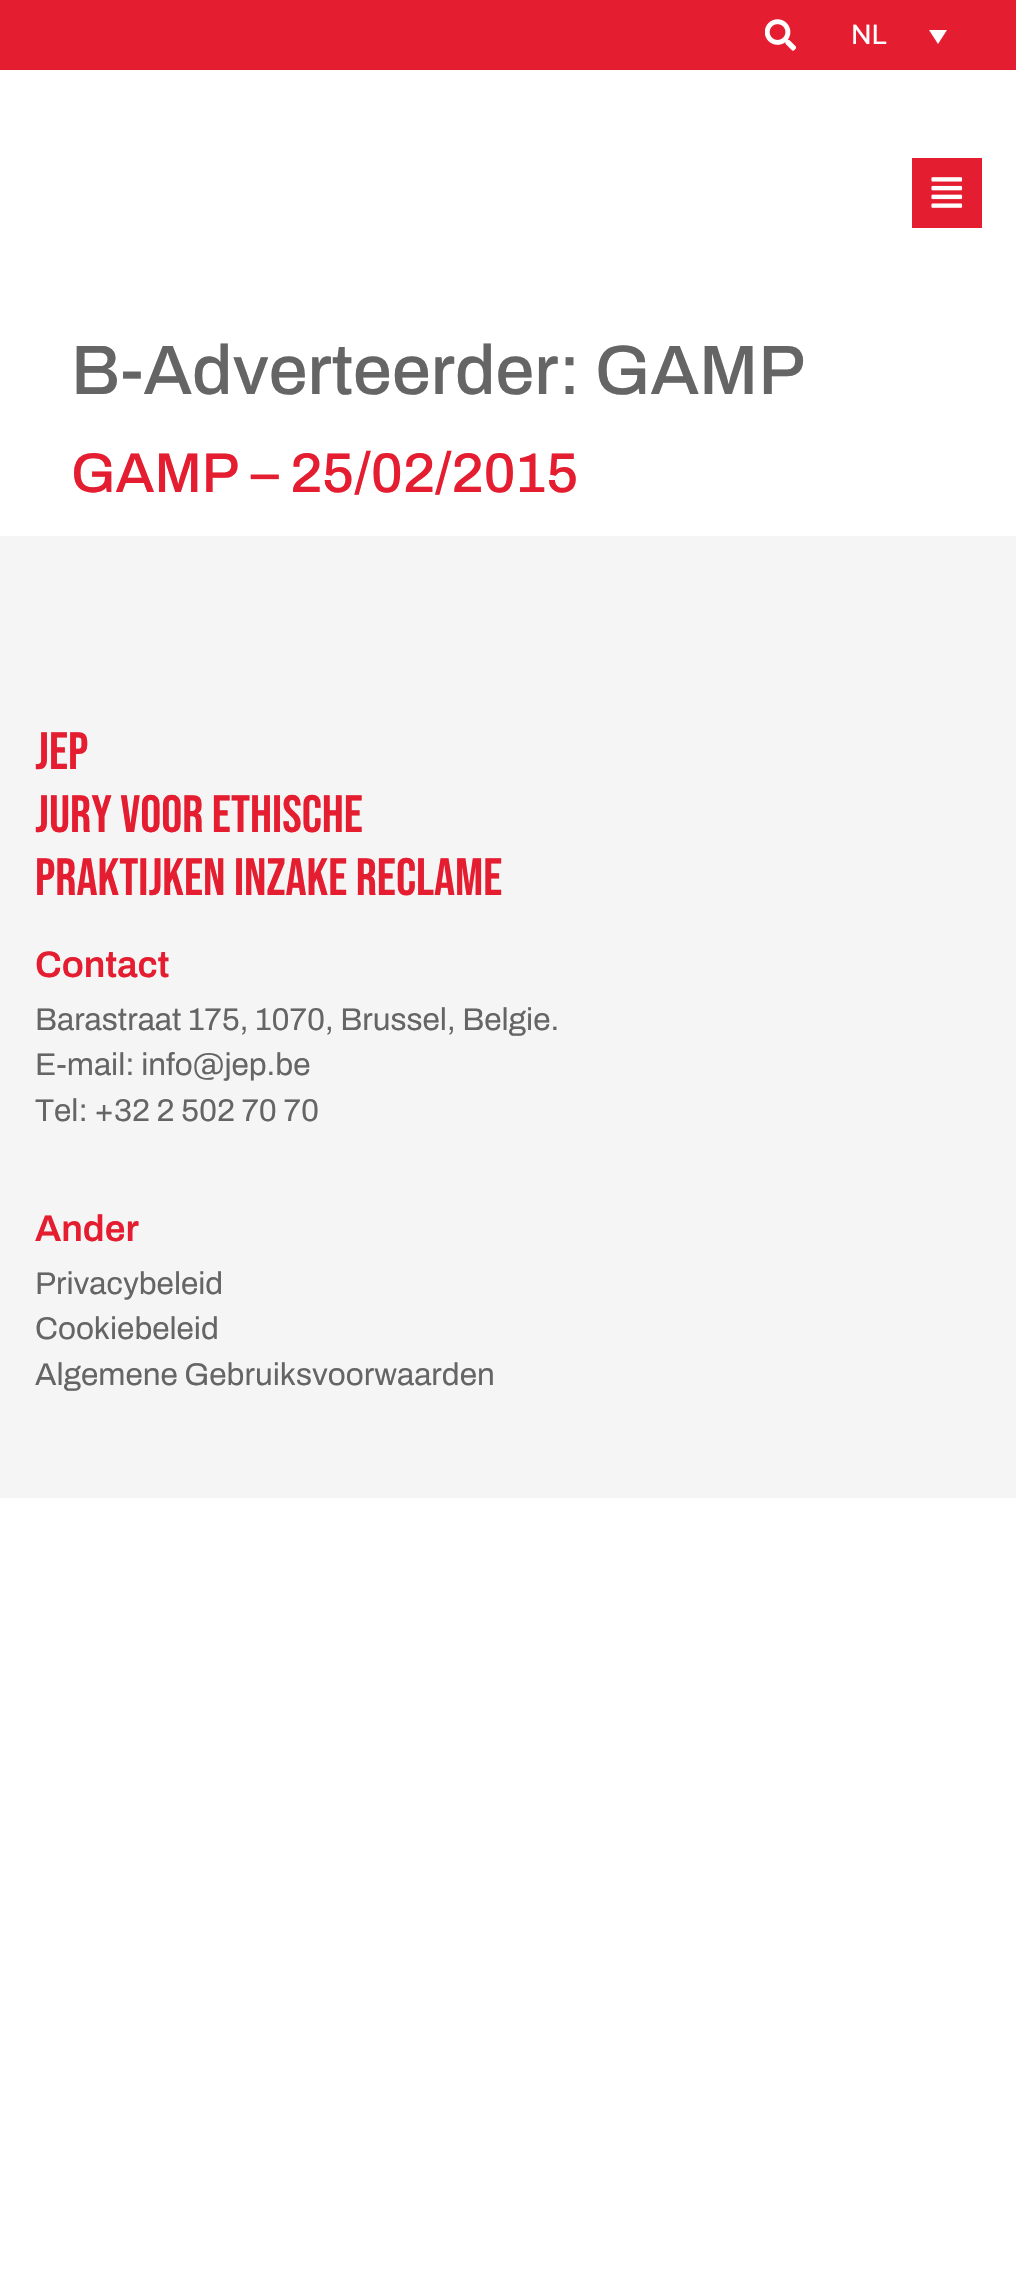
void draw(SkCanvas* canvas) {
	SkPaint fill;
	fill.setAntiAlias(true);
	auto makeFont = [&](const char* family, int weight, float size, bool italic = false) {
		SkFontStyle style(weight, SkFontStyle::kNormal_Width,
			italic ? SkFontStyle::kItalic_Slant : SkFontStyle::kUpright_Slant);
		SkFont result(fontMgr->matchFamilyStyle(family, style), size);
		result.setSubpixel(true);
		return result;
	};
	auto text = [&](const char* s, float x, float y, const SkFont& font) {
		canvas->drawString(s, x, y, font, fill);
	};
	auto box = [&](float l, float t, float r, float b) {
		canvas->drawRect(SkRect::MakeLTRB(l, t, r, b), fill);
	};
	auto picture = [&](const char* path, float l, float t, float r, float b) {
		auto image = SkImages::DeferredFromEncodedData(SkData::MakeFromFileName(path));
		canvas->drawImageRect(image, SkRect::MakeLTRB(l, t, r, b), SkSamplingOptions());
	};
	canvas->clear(0xFFFFFFFF);
	fill.setColor(0xFFE41E30);
	box(0, 0, 1016, 70);
	picture("image0.png", 765, 19, 796, 51);
	fill.setColor(0xFFFFFFFF);
	canvas->drawPath(SkPathBuilder().moveTo(929, 30).lineTo(947, 30).lineTo(938, 44).close().detach(), fill);
	fill.setColor(0xFFE41E30);
	box(912, 158, 982, 228);
	picture("image1.png", 931, 177, 963, 208);
	fill.setColor(0xFFF5F5F5);
	box(0, 536, 1016, 1498);
	auto font1 = makeFont("Archivo", 400, 28);
	fill.setColor(0xFFFFFFFF);
	text("NL", 851, 44, font1);
	auto font2 = makeFont("Archivo", 500, 70);
	fill.setColor(0xFF656565);
	text("B-Adverteerder: GAMP", 71, 394, font2);
	auto font3 = makeFont("Archivo", 500, 56);
	fill.setColor(0xFFE41E30);
	text("GAMP – 25/02/2015", 71, 492, font3);
	auto font4 = makeFont("Bebas Neue", 400, 52.5f);
	text("JEP", 35, 769, font4);
	text("JURY VOOR ETHISCHE", 35, 832, font4);
	text("PRAKTIJKEN INZAKE RECLAME", 35, 895, font4);
	auto font5 = makeFont("Archivo", 600, 37);
	text("Contact", 35, 977, font5);
	auto font6 = makeFont("Archivo", 400, 31.5f);
	fill.setColor(0xFF656565);
	text("Barastraat 175, 1070, Brussel, Belgie.", 35, 1030, font6);
	text("E-mail: info@jep.be", 35, 1075, font6);
	text("Tel: +32 2 502 70 70", 35, 1121, font6);
	fill.setColor(0xFFE41E30);
	text("Ander", 35, 1241, font5);
	fill.setColor(0xFF656565);
	text("Privacybeleid", 35, 1294, font6);
	text("Cookiebeleid", 35, 1339, font6);
	text("Algemene Gebruiksvoorwaarden", 35, 1385, font6);
}
